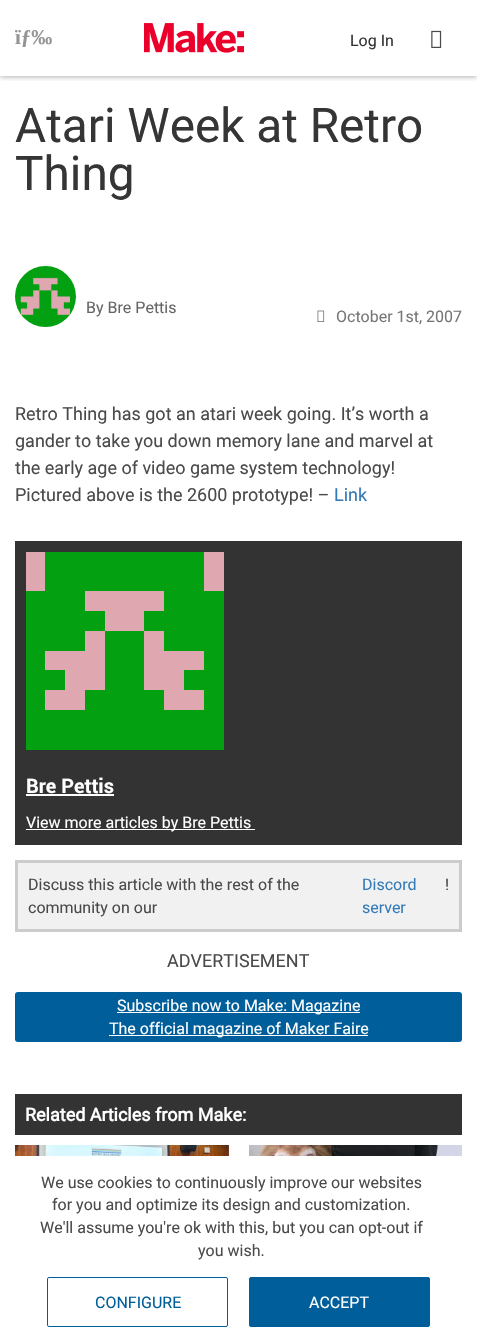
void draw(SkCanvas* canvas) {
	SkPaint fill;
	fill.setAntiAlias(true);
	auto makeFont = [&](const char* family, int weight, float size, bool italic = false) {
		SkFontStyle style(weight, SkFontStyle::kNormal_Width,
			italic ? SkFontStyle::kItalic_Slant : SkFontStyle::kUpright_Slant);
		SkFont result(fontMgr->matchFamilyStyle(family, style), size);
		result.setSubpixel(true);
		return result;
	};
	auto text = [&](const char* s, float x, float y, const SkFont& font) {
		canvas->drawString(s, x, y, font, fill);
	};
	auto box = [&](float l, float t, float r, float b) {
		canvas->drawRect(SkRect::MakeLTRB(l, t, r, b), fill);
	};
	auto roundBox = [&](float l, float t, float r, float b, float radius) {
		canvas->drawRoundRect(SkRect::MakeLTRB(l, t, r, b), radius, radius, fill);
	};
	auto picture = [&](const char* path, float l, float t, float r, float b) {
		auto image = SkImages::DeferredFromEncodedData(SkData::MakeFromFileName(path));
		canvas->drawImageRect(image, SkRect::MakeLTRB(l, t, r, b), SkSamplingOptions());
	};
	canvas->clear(0xFFFFFFFF);
	canvas->save();
	canvas->clipRect(SkRect::MakeLTRB(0, 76, 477, 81));
	fill.setColor(0x4D000000);
	fill.setMaskFilter(SkMaskFilter::MakeBlur(kNormal_SkBlurStyle, 2.5f));
	canvas->drawRect(SkRect::MakeLTRB(0, 1, 477, 77), fill);
	fill.setMaskFilter(nullptr);
	canvas->restore();
	picture("image0.png", 144, 23, 244, 53);
	picture("image1.png", 431, 30, 442, 48);
	picture("image2.png", 15, 266, 76, 327);
	picture("image3.png", 317, 310, 325, 322);
	fill.setColor(0xFF333333);
	box(15, 541, 462, 845);
	picture("image4.png", 26, 552, 224, 750);
	fill.setColor(0xFFFFFFFF);
	box(26, 794, 114, 796);
	box(26, 829, 255, 830);
	fill.setColor(0xFFF1F1F1);
	canvas->drawRect(SkRect::MakeLTRB(16.5f, 861.5f, 460.5f, 930.5f), fill);
	fill.setStyle(SkPaint::kStroke_Style);
	fill.setStrokeWidth(3);
	fill.setColor(0xFFCCCCCC);
	canvas->drawRect(SkRect::MakeLTRB(16.5f, 861.5f, 460.5f, 930.5f), fill);
	fill.setStyle(SkPaint::kFill_Style);
	fill.setColor(0xFF005E9A);
	roundBox(15, 992, 462, 1042, 3);
	fill.setColor(0xFFFFFFFF);
	box(117, 1012, 360, 1013);
	box(109, 1035, 368, 1036);
	fill.setColor(0xFF333333);
	box(15, 1094, 462, 1135);
	picture("image5.png", 15, 1145, 229, 1156);
	picture("image6.png", 15, 1145, 229, 1156);
	picture("image7.png", 249, 1145, 462, 1156);
	picture("image8.png", 249, 1145, 462, 1156);
	fill.setStyle(SkPaint::kStroke_Style);
	fill.setStrokeWidth(1);
	fill.setColor(0xFF005E9A);
	canvas->drawRoundRect(SkRect::MakeLTRB(47.5f, 1277.5f, 227.5f, 1326.5f), 1.5f, 1.5f, fill);
	fill.setStyle(SkPaint::kFill_Style);
	canvas->drawRoundRect(SkRect::MakeLTRB(249.5f, 1277.5f, 429.5f, 1326.5f), 1.5f, 1.5f, fill);
	fill.setStyle(SkPaint::kStroke_Style);
	canvas->drawRoundRect(SkRect::MakeLTRB(249.5f, 1277.5f, 429.5f, 1326.5f), 1.5f, 1.5f, fill);
	auto font1 = makeFont("Liberation Serif", 700, 21);
	fill.setStyle(SkPaint::kFill_Style);
	fill.setColor(0xFF939597);
	text("ïƒ‰", 15, 44, font1);
	auto font2 = makeFont("Roboto", 400, 16);
	fill.setColor(0xFF353535);
	text("Log In", 350, 46, font2);
	auto font3 = makeFont("Roboto", 400, 47.75f);
	text("Atari Week at Retro", 15, 142, font3);
	text("Thing", 15, 190, font3);
	fill.setColor(0xFF666666);
	text("By Bre Pettis", 86, 313, font2);
	fill.setColor(0xFF767676);
	text("October 1st, 2007", 336, 322, font2);
	auto font4 = makeFont("Roboto", 400, 18);
	fill.setColor(0xFF4A4A4A);
	text("Retro Thing has got an atari week going. It’s worth a", 15, 420, font4);
	text("gander to take you down memory lane and marvel at", 15, 447, font4);
	text("the early age of video game system technology!", 15, 474, font4);
	text("Pictured above is the 2600 prototype! –", 15, 501, font4);
	fill.setColor(0xFF337AB7);
	text("Link", 334, 501, font4);
	auto font5 = makeFont("Roboto", 700, 20);
	fill.setColor(0xFFFFFFFF);
	text("Bre Pettis", 26, 793, font5);
	text("View more articles by Bre Pettis", 26, 828, font2);
	fill.setColor(0xFF4A4A4A);
	text("Discuss this article with the rest of the", 28, 890, font2);
	fill.setColor(0xFF337AB7);
	text("Discord", 362, 890, font2);
	text("server", 362, 913, font2);
	fill.setColor(0xFF4A4A4A);
	text("!", 445, 890, font2);
	text("community on our", 28, 913, font2);
	text("ADVERTISEMENT", 167, 967, font4);
	fill.setColor(0xFFFFFFFF);
	text("Subscribe now to Make: Magazine", 117, 1011, font2);
	text("The official magazine of Maker Faire", 109, 1034, font2);
	auto font6 = makeFont("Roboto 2", 700, 18);
	text("Related Articles from Make:", 25, 1121, font6);
	fill.setColor(0xFF4A4A4A);
	text("We use cookies to continuously improve our websites", 41, 1188, font2);
	text("for you and optimize its design and customization.", 52, 1210, font2);
	text("We'll assume you're ok with this, but you can opt-out if", 40, 1233, font2);
	text("you wish.", 198, 1256, font2);
	fill.setColor(0xFF005E9A);
	text("CONFIGURE", 95, 1308, font2);
	fill.setColor(0xFFFFFFFF);
	text("ACCEPT", 309, 1308, font2);
}
